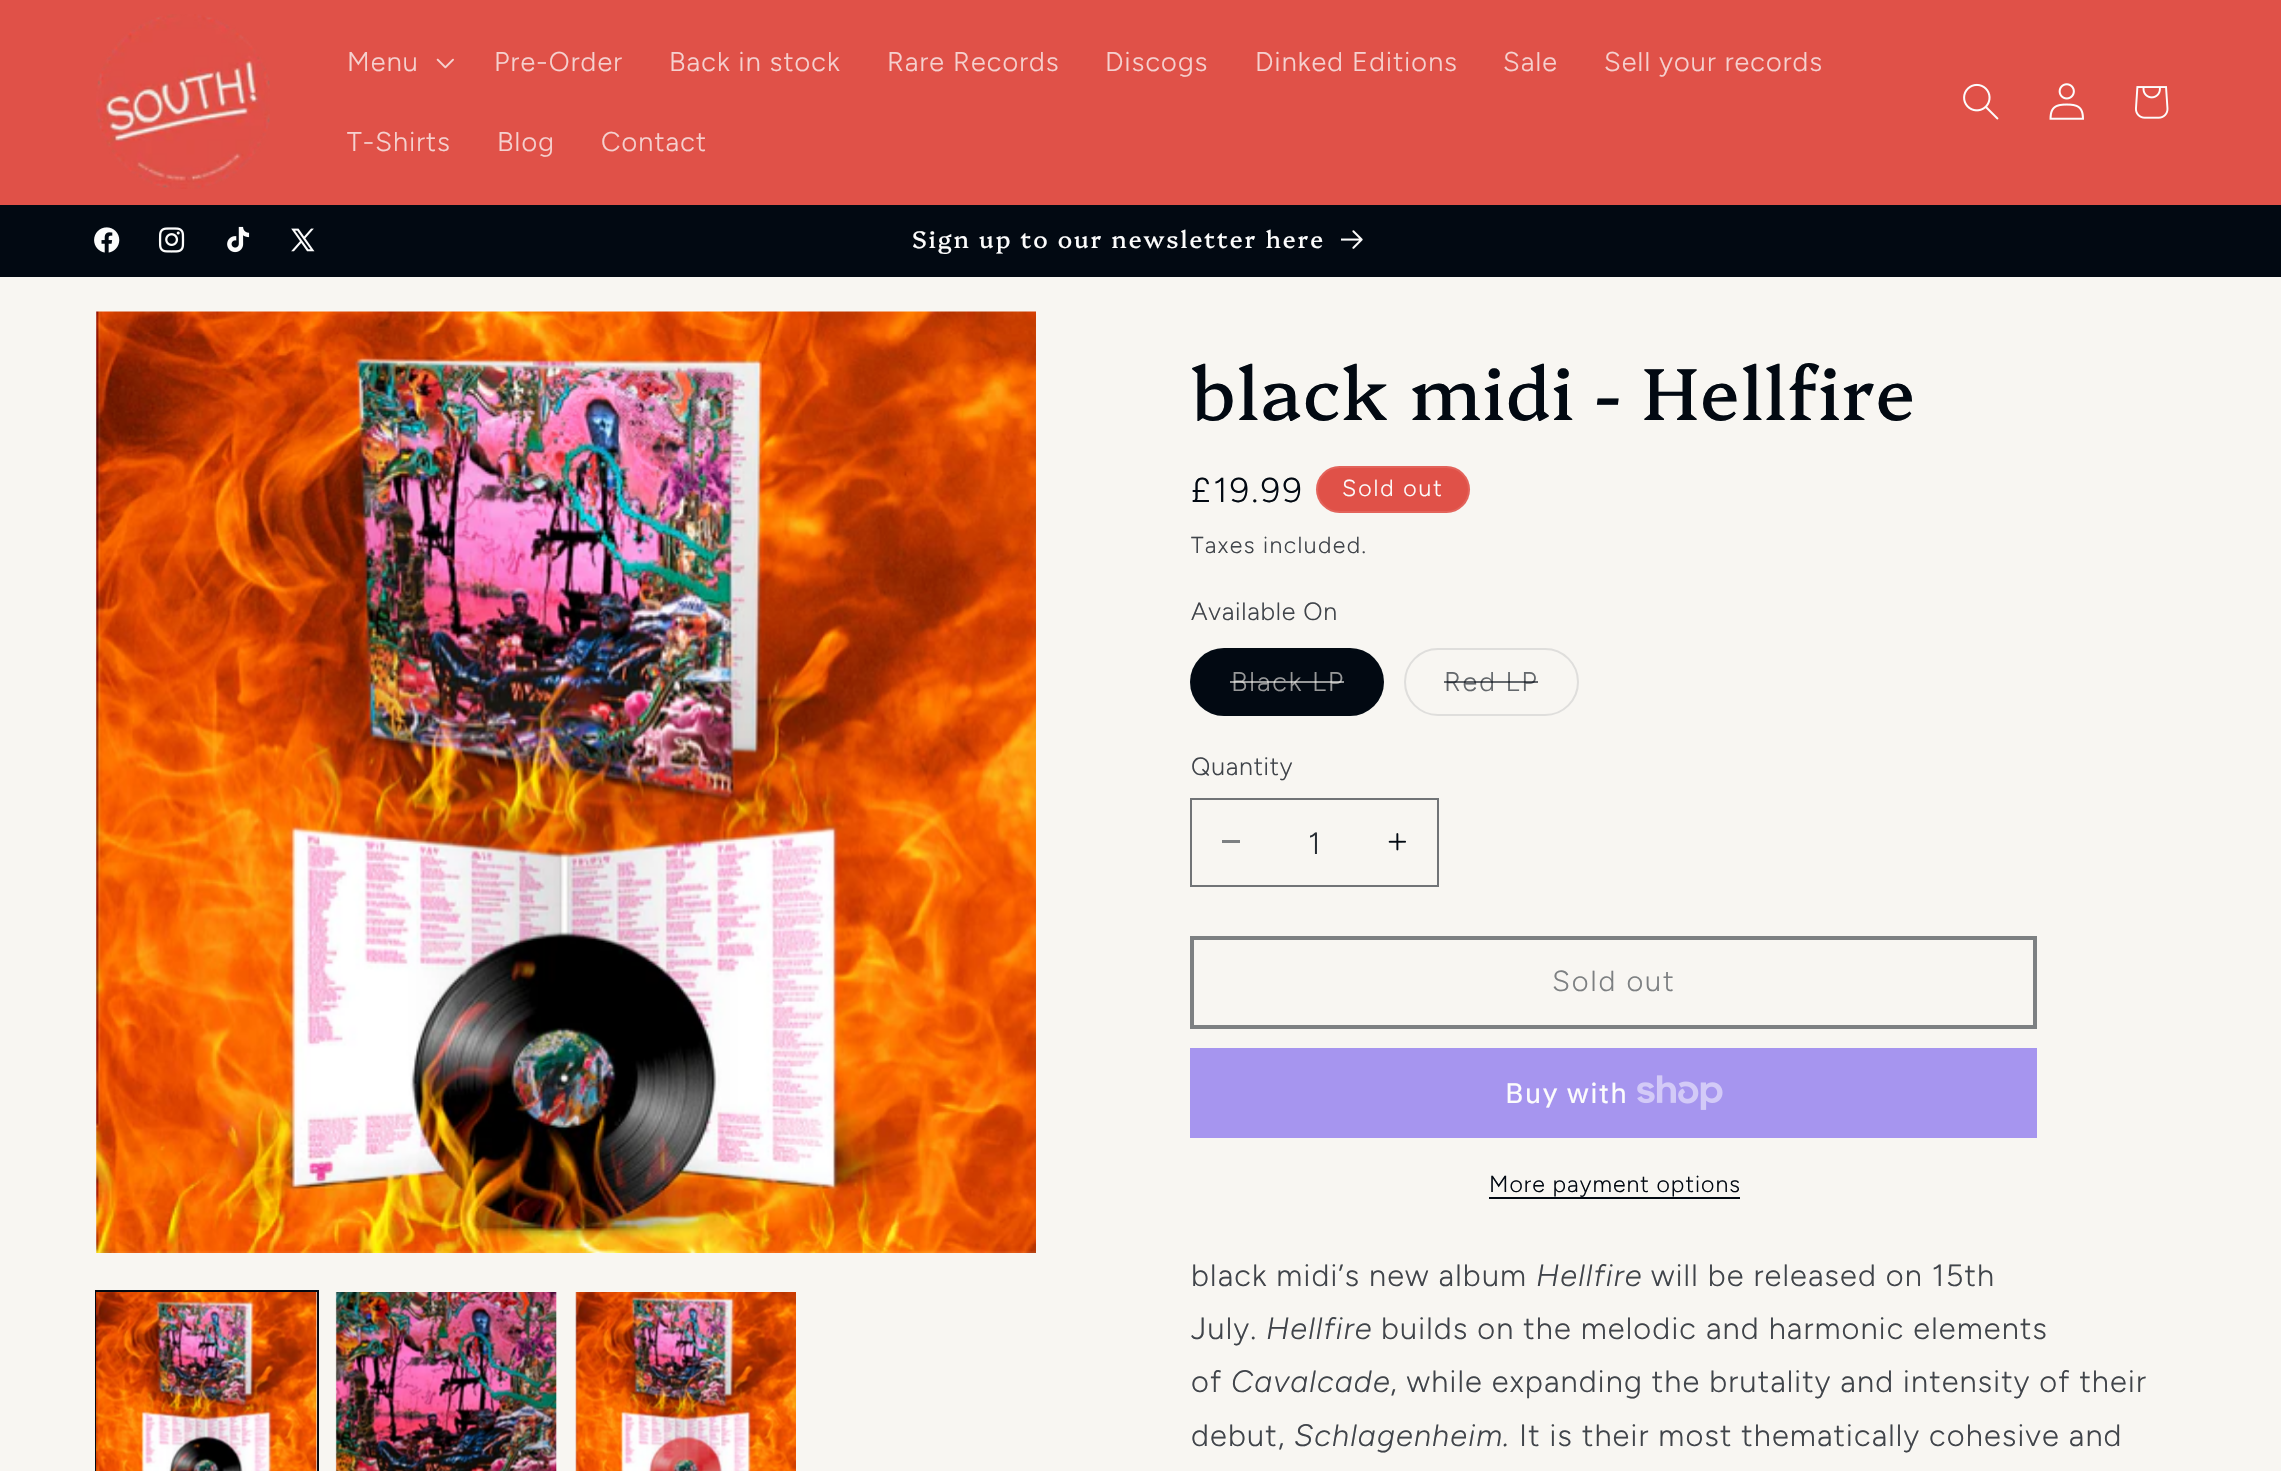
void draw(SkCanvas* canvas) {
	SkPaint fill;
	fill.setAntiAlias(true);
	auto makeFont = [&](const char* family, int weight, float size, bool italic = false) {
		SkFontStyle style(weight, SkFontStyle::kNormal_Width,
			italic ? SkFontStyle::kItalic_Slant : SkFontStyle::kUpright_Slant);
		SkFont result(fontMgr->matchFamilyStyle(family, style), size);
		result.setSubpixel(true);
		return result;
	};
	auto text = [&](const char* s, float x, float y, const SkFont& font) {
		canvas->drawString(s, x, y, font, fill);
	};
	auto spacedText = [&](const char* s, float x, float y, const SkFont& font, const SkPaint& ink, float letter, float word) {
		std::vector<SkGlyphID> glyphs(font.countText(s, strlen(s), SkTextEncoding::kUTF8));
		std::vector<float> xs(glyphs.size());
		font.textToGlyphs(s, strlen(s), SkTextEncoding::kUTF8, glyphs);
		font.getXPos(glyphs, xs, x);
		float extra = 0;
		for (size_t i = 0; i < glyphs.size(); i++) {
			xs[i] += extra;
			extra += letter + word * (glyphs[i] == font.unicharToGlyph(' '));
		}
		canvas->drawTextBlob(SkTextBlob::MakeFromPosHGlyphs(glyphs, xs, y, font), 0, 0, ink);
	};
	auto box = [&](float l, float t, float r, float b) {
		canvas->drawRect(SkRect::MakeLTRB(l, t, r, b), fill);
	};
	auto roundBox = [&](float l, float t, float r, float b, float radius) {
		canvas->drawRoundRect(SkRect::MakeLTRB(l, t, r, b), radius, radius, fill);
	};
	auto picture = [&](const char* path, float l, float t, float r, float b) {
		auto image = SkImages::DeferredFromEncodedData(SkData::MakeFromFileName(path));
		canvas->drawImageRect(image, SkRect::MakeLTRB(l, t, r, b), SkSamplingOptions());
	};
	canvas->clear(0xFF020912);
	fill.setColor(0xFFE05148);
	box(0, 0, 2281, 205);
	picture("image0.png", 96, 14, 270, 189);
	picture("image1.png", 436, 58, 454, 69);
	picture("image2.png", 1963, 83, 1999, 120);
	picture("image3.png", 2049, 83, 2084, 120);
	picture("image4.png", 2135, 86, 2169, 119);
	picture("image5.png", 94, 227, 120, 253);
	picture("image6.png", 158, 227, 185, 253);
	picture("image7.png", 227, 226, 250, 253);
	picture("image8.png", 291, 228, 315, 252);
	picture("image9.png", 1341, 230, 1363, 249);
	fill.setColor(0xFFF8F6F2);
	box(0, 277, 2281, 1471);
	picture("image10.png", 96, 311, 1036, 1253);
	fill.setStyle(SkPaint::kStroke_Style);
	fill.setStrokeWidth(2);
	fill.setColor(0xFF020912);
	canvas->drawRect(SkRect::MakeLTRB(96, 1291, 318, 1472), fill);
	picture("image11.png", 96, 1292, 318, 1471);
	picture("image12.png", 335, 1292, 557, 1471);
	picture("image13.png", 575, 1292, 796, 1471);
	fill.setStyle(SkPaint::kFill_Style);
	fill.setColor(0xFFE05148);
	roundBox(1316, 466, 1470, 513, 23.5f);
	fill.setStyle(SkPaint::kStroke_Style);
	fill.setColor(0x1AFCFCFC);
	canvas->drawRoundRect(SkRect::MakeLTRB(1317, 467, 1469, 512), 22.5f, 22.5f, fill);
	fill.setStyle(SkPaint::kFill_Style);
	fill.setColor(0xFF020912);
	roundBox(1190, 648, 1384, 716, 34);
	fill.setStyle(SkPaint::kStroke_Style);
	fill.setColor(0x1A020912);
	canvas->drawRoundRect(SkRect::MakeLTRB(1191, 649, 1383, 715), 33, 33, fill);
	fill.setColor(0xFFDFDEDC);
	canvas->drawRoundRect(SkRect::MakeLTRB(1405, 649, 1578, 715), 33, 33, fill);
	fill.setStyle(SkPaint::kFill_Style);
	fill.setColor(0xFF7D8082);
	box(1222, 840, 1240, 843);
	picture("image14.png", 1388, 833, 1406, 851);
	fill.setStyle(SkPaint::kStroke_Style);
	fill.setColor(0xFF717477);
	canvas->drawRect(SkRect::MakeLTRB(1191, 799, 1438, 886), fill);
	fill.setStrokeWidth(4);
	fill.setColor(0xFF7D8082);
	canvas->drawRect(SkRect::MakeLTRB(1192, 938, 2035, 1027), fill);
	fill.setStyle(SkPaint::kFill_Style);
	fill.setColor(0xFFA695EF);
	box(1190, 1048, 2037, 1138);
	picture("image15.png", 1637, 1075, 1723, 1110);
	fill.setColor(0xFF020912);
	box(1489, 1197, 1740, 1199);
	auto font1 = makeFont("Figtree", 300, 27);
	fill.setColor(0xFFF5D1CF);
	spacedText("Menu", 347, 71, font1, fill, 1.15f, 0);
	spacedText("Pre-Order", 494, 71, font1, fill, 1.15f, 0);
	spacedText("Back in stock", 669, 71, font1, fill, 1.15f, 0);
	spacedText("Rare Records", 887, 71, font1, fill, 1.15f, 0);
	spacedText("Discogs", 1105, 71, font1, fill, 1.15f, 0);
	spacedText("Dinked Editions", 1255, 71, font1, fill, 1.15f, 0);
	spacedText("Sale", 1503, 71, font1, fill, 1.15f, 0);
	spacedText("Sell your records", 1604, 71, font1, fill, 1.15f, 0);
	spacedText("T-Shirts", 347, 151, font1, fill, 1.15f, 0);
	spacedText("Blog", 497, 151, font1, fill, 1.15f, 0);
	spacedText("Contact", 601, 151, font1, fill, 1.15f, 0);
	auto font2 = makeFont("Platypi", 400, 23.9f);
	fill.setColor(0xFFFCFCFC);
	spacedText("Sign up to our newsletter here", 912, 248, font2, fill, 1.9f, 0);
	auto font3 = makeFont("Platypi", 400, 73.5f);
	fill.setColor(0xFF020912);
	spacedText("black midi - Hellfire", 1191, 420, font3, fill, 1.1f, 0);
	auto font4 = makeFont("Figtree", 300, 34.5f);
	spacedText("£19.99", 1191, 502, font4, fill, 2.5f, 0);
	auto font5 = makeFont("Figtree", 300, 23.1f);
	fill.setColor(0xFFFCFCFC);
	spacedText("Sold out", 1342, 496, font5, fill, 1.9f, 0);
	fill.setColor(0xFF40444A);
	spacedText("Taxes included.", 1191, 553, font5, fill, 1.4f, 0);
	auto font6 = makeFont("Figtree", 300, 25);
	spacedText("Available On", 1191, 620, font6, fill, 0.75f, 0);
	fill.setColor(0xFF969798);
	spacedText("Black LP", 1231, 691, font1, fill, 1.9f, 0);
	fill.setColor(0x99F8F6F2);
	box(1230, 681, 1344, 683);
	fill.setColor(0xFF64686C);
	spacedText("Red LP", 1444, 691, font1, fill, 1.9f, 0);
	fill.setColor(0x99020912);
	box(1444, 681, 1538, 683);
	fill.setColor(0xFF40444A);
	spacedText("Quantity", 1191, 775, font6, fill, 0.75f, 0);
	auto font7 = makeFont("Figtree", 300, 30.8f);
	fill.setColor(0xFF272D34);
	text("1", 1308, 854, font7);
	auto font8 = makeFont("Figtree", 300, 29);
	fill.setColor(0xFF7D8082);
	spacedText("Sold out", 1552, 991, font8, fill, 1.9f, 0);
	auto font9 = makeFont("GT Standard", 400, 28);
	fill.setColor(0xFFFCFCFC);
	spacedText("Buy with", 1505, 1103, font9, fill, 1.15f, 0);
	fill.setColor(0xFF020912);
	spacedText("More payment options", 1489, 1192, font5, fill, 1, 0);
	fill.setColor(0xFF40444A);
	spacedText("black midi’s new album", 1191, 1286, font7, fill, 1.15f, 0);
	auto font10 = makeFont("Figtree", 300, 30.8f, true);
	spacedText("Hellfire", 1536, 1286, font10, fill, 1.15f, 0);
	spacedText("will be released on 15th", 1651, 1286, font7, fill, 1.15f, 0);
	spacedText("July.", 1191, 1339, font7, fill, 1.15f, 0);
	spacedText("Hellfire", 1266, 1339, font10, fill, 1.15f, 0);
	spacedText("builds on the melodic and harmonic elements", 1381, 1339, font7, fill, 1.15f, 0);
	spacedText("of", 1191, 1392, font7, fill, 1.15f, 0);
	spacedText("Cavalcade", 1231, 1392, font10, fill, 1.15f, 0);
	spacedText(", while expanding the brutality and intensity of their", 1390, 1392, font7, fill, 1.15f, 0);
	spacedText("debut,", 1191, 1446, font7, fill, 1.15f, 0);
	spacedText("Schlagenheim.", 1294, 1446, font10, fill, 1.15f, 0);
	spacedText("It is their most thematically cohesive and", 1519, 1446, font7, fill, 1.15f, 0);
}
